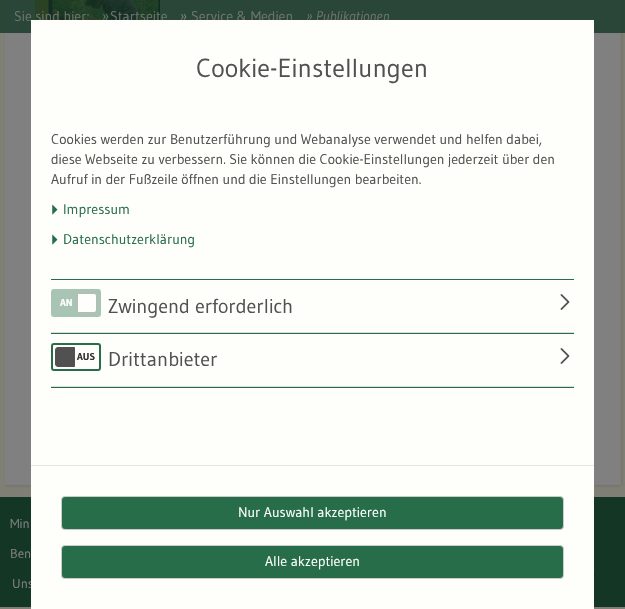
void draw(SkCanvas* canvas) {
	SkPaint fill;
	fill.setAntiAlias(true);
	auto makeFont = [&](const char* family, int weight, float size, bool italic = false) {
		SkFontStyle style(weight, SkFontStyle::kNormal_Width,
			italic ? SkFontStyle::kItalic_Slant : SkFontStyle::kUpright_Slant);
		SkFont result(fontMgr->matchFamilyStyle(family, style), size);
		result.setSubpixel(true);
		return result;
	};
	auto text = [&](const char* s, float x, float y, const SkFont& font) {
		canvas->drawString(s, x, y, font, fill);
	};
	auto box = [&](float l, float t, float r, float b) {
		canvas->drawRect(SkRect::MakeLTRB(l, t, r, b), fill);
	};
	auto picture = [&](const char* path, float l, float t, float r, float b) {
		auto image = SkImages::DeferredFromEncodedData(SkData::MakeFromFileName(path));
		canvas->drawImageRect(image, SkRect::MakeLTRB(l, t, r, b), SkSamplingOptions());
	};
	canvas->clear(0xFF807F75);
	fill.setColor(0x4D4F4B4A);
	fill.setMaskFilter(SkMaskFilter::MakeBlur(kNormal_SkBlurStyle, 1.5f));
	canvas->drawRect(SkRect::MakeLTRB(5, -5, 622, 486), fill);
	fill.setMaskFilter(nullptr);
	fill.setColor(0xFF808080);
	box(5, 0, 620, 484);
	fill.setColor(0xFF807F75);
	box(620, 0, 621, 485);
	fill.setColor(0xFF808080);
	box(4, 484, 621, 485);
	fill.setColor(0xFF807F75);
	box(4, 0, 5, 485);
	picture("image0.png", 35, 0, 160, 20);
	fill.setColor(0xCC143725);
	box(0, 0, 625, 33);
	fill.setColor(0xFF143725);
	box(0, 497, 625, 607);
	picture("image3.png", 594, 574, 595, 576);
	auto font1 = makeFont("Gudea", 400, 14);
	fill.setColor(0xFF6D736F);
	text("Sie sind hier:", 14, 21, font1);
	text("»", 102, 21, font1);
	text("Startseite", 110, 21, font1);
	fill.setColor(0xFF808080);
	text("»", 180, 21, font1);
	fill.setColor(0xFF6D736F);
	text("Service & Medien", 191, 21, font1);
	auto font2 = makeFont("Gudea", 400, 14, true);
	text("»", 306, 21, font2);
	text("Publikationen", 316, 21, font2);
	auto font3 = makeFont("Gudea", 400, 13);
	fill.setColor(0xFF808080);
	text("Min", 10, 528, font3);
	text("Ben", 10, 558, font3);
	text("Uns", 12, 588, font3);
	fill.setColor(0xFFFEFFFB);
	box(31, 20, 594, 609);
	auto font4 = makeFont("Gudea", 400, 26);
	fill.setColor(0xFF515151);
	text("Cookie-Einstellungen", 196, 77, font4);
	text("Cookies werden zur Benutzerführung und Webanalyse verwendet und helfen dabei,", 51, 144, font1);
	text("diese Webseite zu verbessern. Sie können die Cookie-Einstellungen jederzeit über den", 51, 164, font1);
	text("Aufruf in der Fußzeile öffnen und die Einstellungen bearbeiten.", 51, 184, font1);
	picture("image1.png", 52, 204, 58, 215);
	fill.setColor(0xFF286D4A);
	text("Impressum", 63, 214, font1);
	picture("image1.png", 52, 234, 58, 245);
	text("Datenschutzerklärung", 63, 244, font1);
	box(51, 279, 574, 280);
	box(51, 333, 574, 334);
	fill.setColor(0xFFDDDDDD);
	box(51, 332, 574, 333);
	fill.setColor(0xFFA8C5B4);
	canvas->drawRoundRect(SkRect::MakeLTRB(52, 290, 100, 316), 2, 2, fill);
	fill.setStyle(SkPaint::kStroke_Style);
	fill.setStrokeWidth(2);
	canvas->drawRoundRect(SkRect::MakeLTRB(52, 290, 100, 316), 2, 2, fill);
	auto font5 = makeFont("Gudea", 700, 10);
	fill.setStyle(SkPaint::kFill_Style);
	fill.setColor(0xFFFEFFFD);
	text("AN", 60, 306, font5);
	canvas->drawPath(SkPathBuilder().moveTo(77.5f, 293.5f).lineTo(94, 293.5f).cubicTo(95.5f, 293.5f, 96.5f, 294.5f, 96.5f, 296).lineTo(96.5f, 310).cubicTo(96.5f, 311.5f, 95.5f, 312.5f, 94, 312.5f).lineTo(77.5f, 312.5f).close().detach(), fill);
	fill.setStyle(SkPaint::kStroke_Style);
	fill.setStrokeWidth(1);
	fill.setColor(0xFFB9B9B7);
	canvas->drawPath(SkPathBuilder().moveTo(77.5f, 293.5f).lineTo(94, 293.5f).cubicTo(95.5f, 293.5f, 96.5f, 294.5f, 96.5f, 296).lineTo(96.5f, 310).cubicTo(96.5f, 311.5f, 95.5f, 312.5f, 94, 312.5f).lineTo(77.5f, 312.5f).close().detach(), fill);
	auto font6 = makeFont("Gudea", 400, 20);
	fill.setStyle(SkPaint::kFill_Style);
	fill.setColor(0xFF515151);
	text("Zwingend erforderlich", 108, 313, font6);
	picture("image2.png", 560, 294, 570, 310);
	fill.setColor(0xFF286D4A);
	box(51, 387, 574, 388);
	fill.setColor(0xFFDDDDDD);
	box(51, 386, 574, 387);
	fill.setStyle(SkPaint::kStroke_Style);
	fill.setStrokeWidth(2);
	fill.setColor(0xFF286D4A);
	canvas->drawRoundRect(SkRect::MakeLTRB(52, 344, 100, 370), 2, 2, fill);
	fill.setStyle(SkPaint::kFill_Style);
	fill.setColor(0xFF515151);
	canvas->drawPath(SkPathBuilder().moveTo(58, 347.5f).lineTo(74.5f, 347.5f).lineTo(74.5f, 366.5f).lineTo(58, 366.5f).cubicTo(56.5f, 366.5f, 55.5f, 365.5f, 55.5f, 364).lineTo(55.5f, 350).cubicTo(55.5f, 348.5f, 56.5f, 347.5f, 58, 347.5f).close().detach(), fill);
	fill.setStyle(SkPaint::kStroke_Style);
	fill.setStrokeWidth(1);
	canvas->drawPath(SkPathBuilder().moveTo(58, 347.5f).lineTo(74.5f, 347.5f).lineTo(74.5f, 366.5f).lineTo(58, 366.5f).cubicTo(56.5f, 366.5f, 55.5f, 365.5f, 55.5f, 364).lineTo(55.5f, 350).cubicTo(55.5f, 348.5f, 56.5f, 347.5f, 58, 347.5f).close().detach(), fill);
	fill.setStyle(SkPaint::kFill_Style);
	fill.setColor(0xFF333333);
	text("AUS", 77, 360, font5);
	fill.setColor(0xFF515151);
	text("Drittanbieter", 108, 366, font6);
	picture("image2.png", 560, 348, 570, 364);
	fill.setColor(0xFFE5E5E5);
	box(31, 465, 594, 466);
	fill.setColor(0xFF286D4A);
	canvas->drawRoundRect(SkRect::MakeLTRB(61.5f, 496.5f, 563.5f, 529.5f), 3.5f, 3.5f, fill);
	fill.setStyle(SkPaint::kStroke_Style);
	fill.setColor(0xFFCCCCCC);
	canvas->drawRoundRect(SkRect::MakeLTRB(61.5f, 496.5f, 563.5f, 529.5f), 3.5f, 3.5f, fill);
	fill.setStyle(SkPaint::kFill_Style);
	fill.setColor(0xFFFEFFFD);
	text("Nur Auswahl akzeptieren", 238, 517, font1);
	fill.setColor(0xFF286D4A);
	canvas->drawRoundRect(SkRect::MakeLTRB(61.5f, 545.5f, 563.5f, 578.5f), 3.5f, 3.5f, fill);
	fill.setStyle(SkPaint::kStroke_Style);
	fill.setColor(0xFFCCCCCC);
	canvas->drawRoundRect(SkRect::MakeLTRB(61.5f, 545.5f, 563.5f, 578.5f), 3.5f, 3.5f, fill);
	fill.setStyle(SkPaint::kFill_Style);
	fill.setColor(0xFFFEFFFD);
	text("Alle akzeptieren", 265, 566, font1);
}
